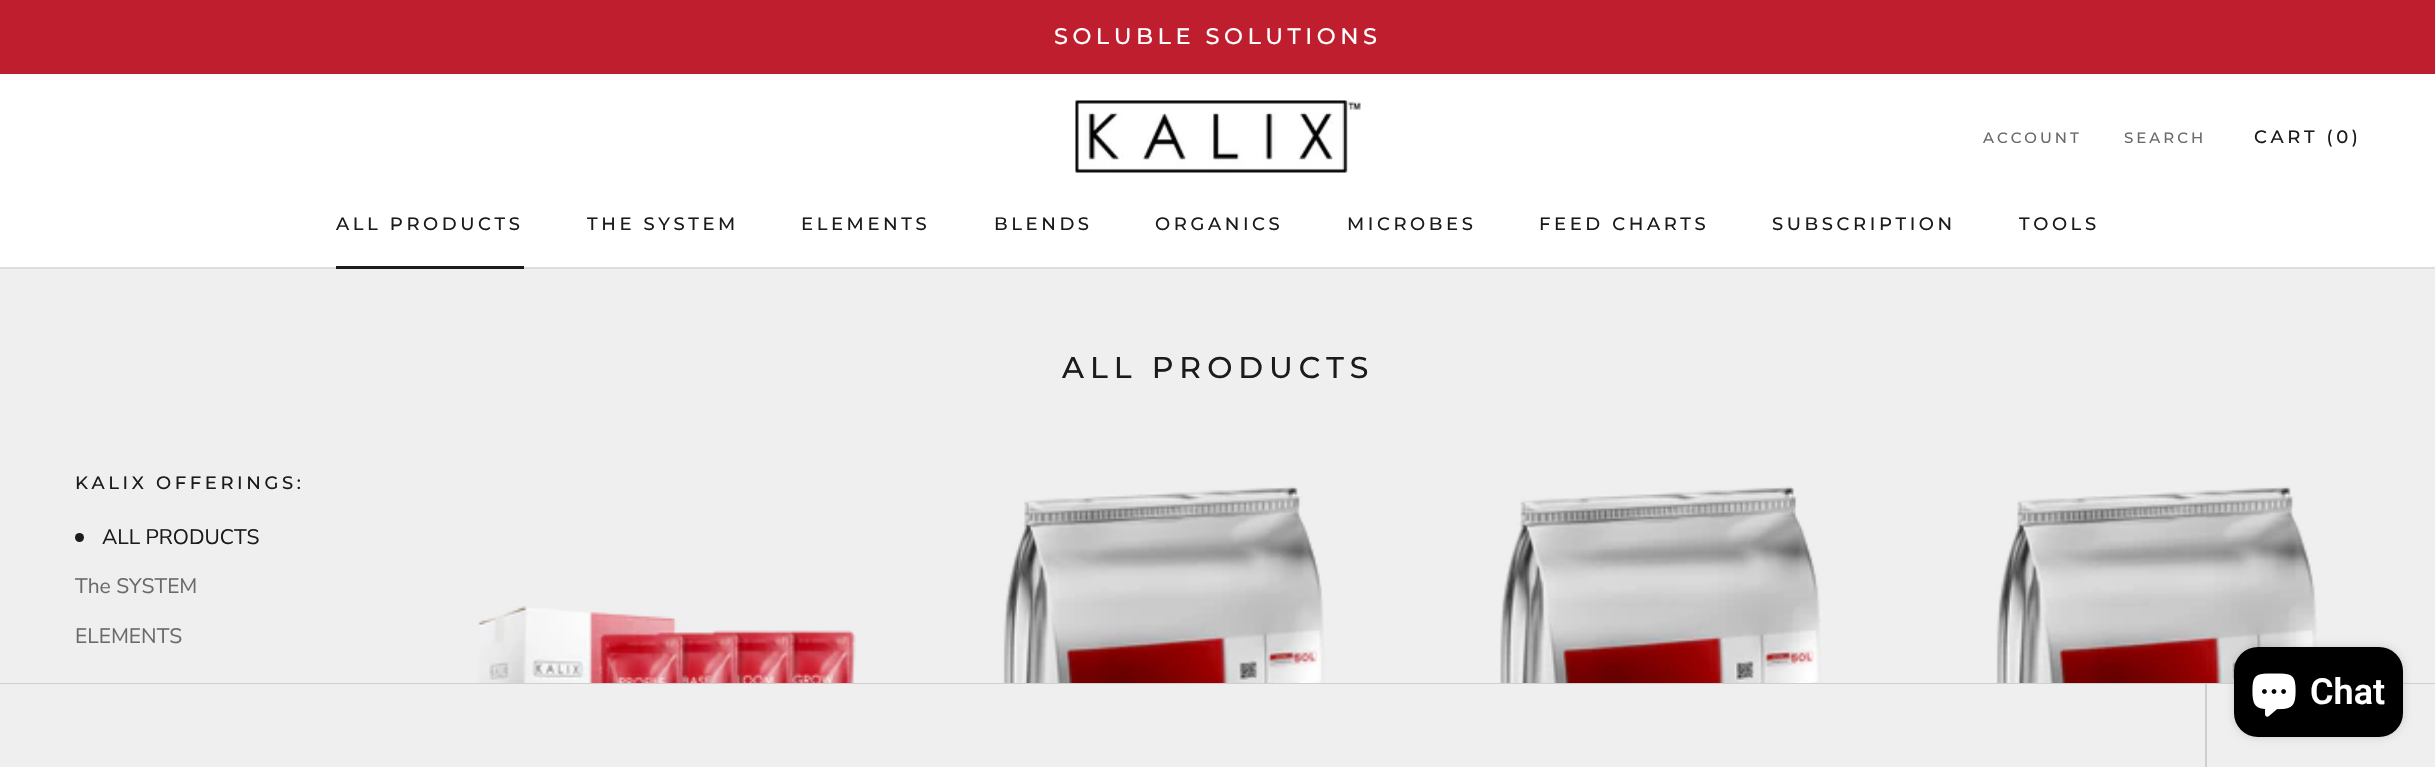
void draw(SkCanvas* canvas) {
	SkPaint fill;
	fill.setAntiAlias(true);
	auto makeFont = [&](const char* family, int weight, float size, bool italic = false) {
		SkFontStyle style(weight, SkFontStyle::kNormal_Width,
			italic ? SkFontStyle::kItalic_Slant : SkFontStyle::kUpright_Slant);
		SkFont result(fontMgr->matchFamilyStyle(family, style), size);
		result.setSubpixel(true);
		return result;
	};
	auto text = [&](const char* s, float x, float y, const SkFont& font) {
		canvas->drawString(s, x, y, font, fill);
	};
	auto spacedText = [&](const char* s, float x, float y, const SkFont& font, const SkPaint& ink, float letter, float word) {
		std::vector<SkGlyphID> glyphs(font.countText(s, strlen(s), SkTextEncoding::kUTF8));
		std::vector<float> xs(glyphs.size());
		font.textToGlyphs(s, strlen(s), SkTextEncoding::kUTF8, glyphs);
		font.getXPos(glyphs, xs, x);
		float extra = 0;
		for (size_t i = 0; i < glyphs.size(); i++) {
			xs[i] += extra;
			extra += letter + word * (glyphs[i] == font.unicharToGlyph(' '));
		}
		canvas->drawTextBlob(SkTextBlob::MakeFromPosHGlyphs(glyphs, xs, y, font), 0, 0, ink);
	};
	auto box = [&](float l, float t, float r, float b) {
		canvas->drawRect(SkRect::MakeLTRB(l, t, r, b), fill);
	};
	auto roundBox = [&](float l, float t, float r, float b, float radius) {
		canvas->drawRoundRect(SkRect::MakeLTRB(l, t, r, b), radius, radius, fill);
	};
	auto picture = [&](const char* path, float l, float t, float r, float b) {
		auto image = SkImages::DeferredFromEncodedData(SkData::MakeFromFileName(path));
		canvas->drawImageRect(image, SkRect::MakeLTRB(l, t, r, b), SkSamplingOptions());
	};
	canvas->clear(0xFFEFEFEF);
	fill.setColor(0xFFBE1E2D);
	box(0, 0, 2435, 74);
	fill.setColor(0xFFFFFFFF);
	box(0, 74, 2435, 267);
	fill.setColor(0xFFDDDDDD);
	box(0, 267, 2435, 269);
	picture("image0.png", 1075, 100, 1361, 173);
	fill.setColor(0xFF1C1B1B);
	box(336, 266, 524, 269);
	canvas->drawCircle(79.5f, 537.5f, 4.5f, fill);
	picture("image1.png", 477, 606, 856, 683);
	picture("image2.png", 1003, 486, 1326, 683);
	picture("image3.png", 1500, 486, 1822, 683);
	picture("image4.png", 1996, 486, 2319, 683);
	fill.setColor(0xFFCFCFCF);
	canvas->drawPath(SkPathBuilder().moveTo(-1, 683).lineTo(-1, 767).lineTo(0, 767).lineTo(0, 684).lineTo(2435, 684).lineTo(2435, 683).close().detach(), fill);
	box(2205, 684, 2207, 767);
	fill.setColor(0x26000000);
	fill.setMaskFilter(SkMaskFilter::MakeBlur(kNormal_SkBlurStyle, 4));
	canvas->drawRoundRect(SkRect::MakeLTRB(2234, 647, 2403, 737), 24, 24, fill);
	fill.setMaskFilter(nullptr);
	fill.setColor(0xFF000000);
	roundBox(2234, 647, 2403, 737, 24);
	picture("image5.png", 2252, 673, 2296, 717);
	auto font1 = makeFont("Montserrat", 500, 22.5f);
	fill.setColor(0xFFFFFFFF);
	spacedText("SOLUBLE SOLUTIONS", 1054, 44, font1, fill, 4.5f, 0);
	auto font2 = makeFont("Montserrat", 500, 15);
	fill.setColor(0xFF6A6A6A);
	spacedText("ACCOUNT", 1983, 143, font2, fill, 3, 0);
	spacedText("SEARCH", 2124, 143, font2, fill, 3, 0);
	auto font3 = makeFont("Montserrat", 500, 18);
	fill.setColor(0xFF1C1B1B);
	spacedText("CART (0)", 2254, 143, font3, fill, 3.6f, 0);
	spacedText("ALL PRODUCTS", 336, 230, font3, fill, 3.6f, 0);
	spacedText("THE SYSTEM", 587, 230, font3, fill, 3.6f, 0);
	spacedText("ELEMENTS", 801, 230, font3, fill, 3.6f, 0);
	spacedText("BLENDS", 994, 230, font3, fill, 3.6f, 0);
	spacedText("ORGANICS", 1155, 230, font3, fill, 3.6f, 0);
	spacedText("MICROBES", 1347, 230, font3, fill, 3.6f, 0);
	spacedText("FEED CHARTS", 1539, 230, font3, fill, 3.6f, 0);
	spacedText("SUBSCRIPTION", 1772, 230, font3, fill, 3.6f, 0);
	spacedText("TOOLS", 2019, 230, font3, fill, 3.6f, 0);
	auto font4 = makeFont("Montserrat", 500, 30);
	spacedText("ALL PRODUCTS", 1062, 378, font4, fill, 6, 0);
	spacedText("KALIX OFFERINGS:", 75, 489, font3, fill, 3.6f, 0);
	auto font5 = makeFont("Nunito Sans", 400, 21);
	text("ALL PRODUCTS", 102, 544, font5);
	fill.setColor(0xFF6A6A6A);
	text("The SYSTEM", 75, 593, font5);
	text("ELEMENTS", 75, 643, font5);
	auto font6 = makeFont("Roboto", 600, 36);
	fill.setColor(0xFFFFFFFF);
	text("Chat", 2310, 704, font6);
}
